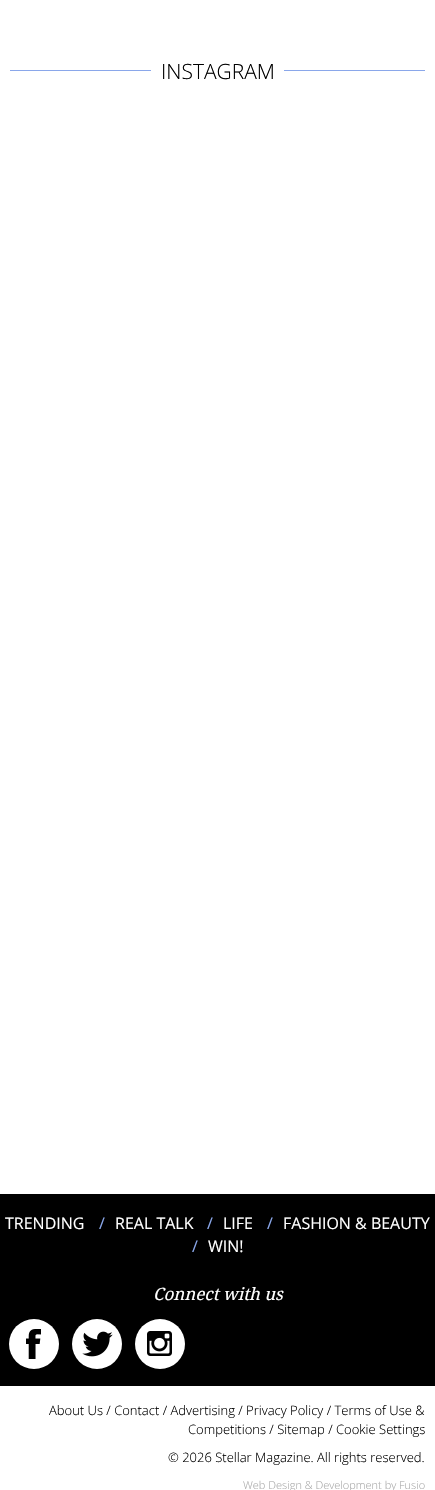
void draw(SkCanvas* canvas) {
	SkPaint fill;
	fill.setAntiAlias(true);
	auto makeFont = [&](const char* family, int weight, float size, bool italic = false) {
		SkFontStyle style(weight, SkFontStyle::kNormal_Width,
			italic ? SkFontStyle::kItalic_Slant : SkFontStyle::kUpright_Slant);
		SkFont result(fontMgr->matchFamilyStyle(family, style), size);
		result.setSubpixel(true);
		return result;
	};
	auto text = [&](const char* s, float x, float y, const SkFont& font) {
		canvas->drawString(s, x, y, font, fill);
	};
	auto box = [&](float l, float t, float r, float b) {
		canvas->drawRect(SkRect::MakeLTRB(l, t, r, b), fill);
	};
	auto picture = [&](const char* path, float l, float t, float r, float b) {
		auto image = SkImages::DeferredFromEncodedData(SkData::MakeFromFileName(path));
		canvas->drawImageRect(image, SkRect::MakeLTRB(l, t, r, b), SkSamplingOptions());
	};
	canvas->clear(0xFFFFFFFF);
	fill.setColor(0xFF8AA7EA);
	box(10, 70, 425, 71);
	fill.setColor(0xFFFFFFFF);
	box(151, 70, 284, 71);
	fill.setColor(0xFF000000);
	box(0, 1194, 435, 1386);
	fill.setColor(0xFFFFFFFF);
	canvas->drawCircle(34, 1344, 25, fill);
	picture("image0.png", 26, 1329, 41, 1359);
	canvas->drawCircle(97, 1344, 25, fill);
	picture("image1.png", 82, 1331, 113, 1357);
	canvas->drawCircle(160, 1344, 25, fill);
	picture("image2.png", 147, 1331, 172, 1356);
	auto font1 = makeFont("Open Sans", 300, 21);
	fill.setColor(0xFF000000);
	text("INSTAGRAM", 161, 79, font1);
	auto font2 = makeFont("Open Sans", 400, 16);
	fill.setColor(0xFFFFFFFF);
	text("TRENDING", 5, 1229, font2);
	fill.setColor(0xFF8AA7EA);
	text("/", 99, 1229, font2);
	fill.setColor(0xFFFFFFFF);
	text("REAL TALK", 115, 1229, font2);
	fill.setColor(0xFF8AA7EA);
	text("/", 207, 1229, font2);
	fill.setColor(0xFFFFFFFF);
	text("LIFE", 223, 1229, font2);
	fill.setColor(0xFF8AA7EA);
	text("/", 267, 1229, font2);
	fill.setColor(0xFFFFFFFF);
	text("FASHION & BEAUTY", 283, 1229, font2);
	fill.setColor(0xFF8AA7EA);
	text("/", 192, 1252, font2);
	fill.setColor(0xFFFFFFFF);
	text("WIN!", 208, 1252, font2);
	auto font3 = makeFont("Droid Serif", 400, 17, true);
	text("Connect with us", 153, 1300, font3);
	auto font4 = makeFont("Open Sans", 300, 13);
	fill.setColor(0xFF000000);
	text("About Us / Contact / Advertising / Privacy Policy / Terms of Use &", 49, 1415, font4);
	text("Competitions / Sitemap / Cookie Settings", 188, 1434, font4);
	text("© 2026 Stellar Magazine. All rights reserved.", 168, 1462, font4);
	auto font5 = makeFont("Open Sans", 300, 11);
	fill.setColor(0xFFAAAAAA);
	text("Web Design & Development by Fusio", 243, 1489, font5);
}
